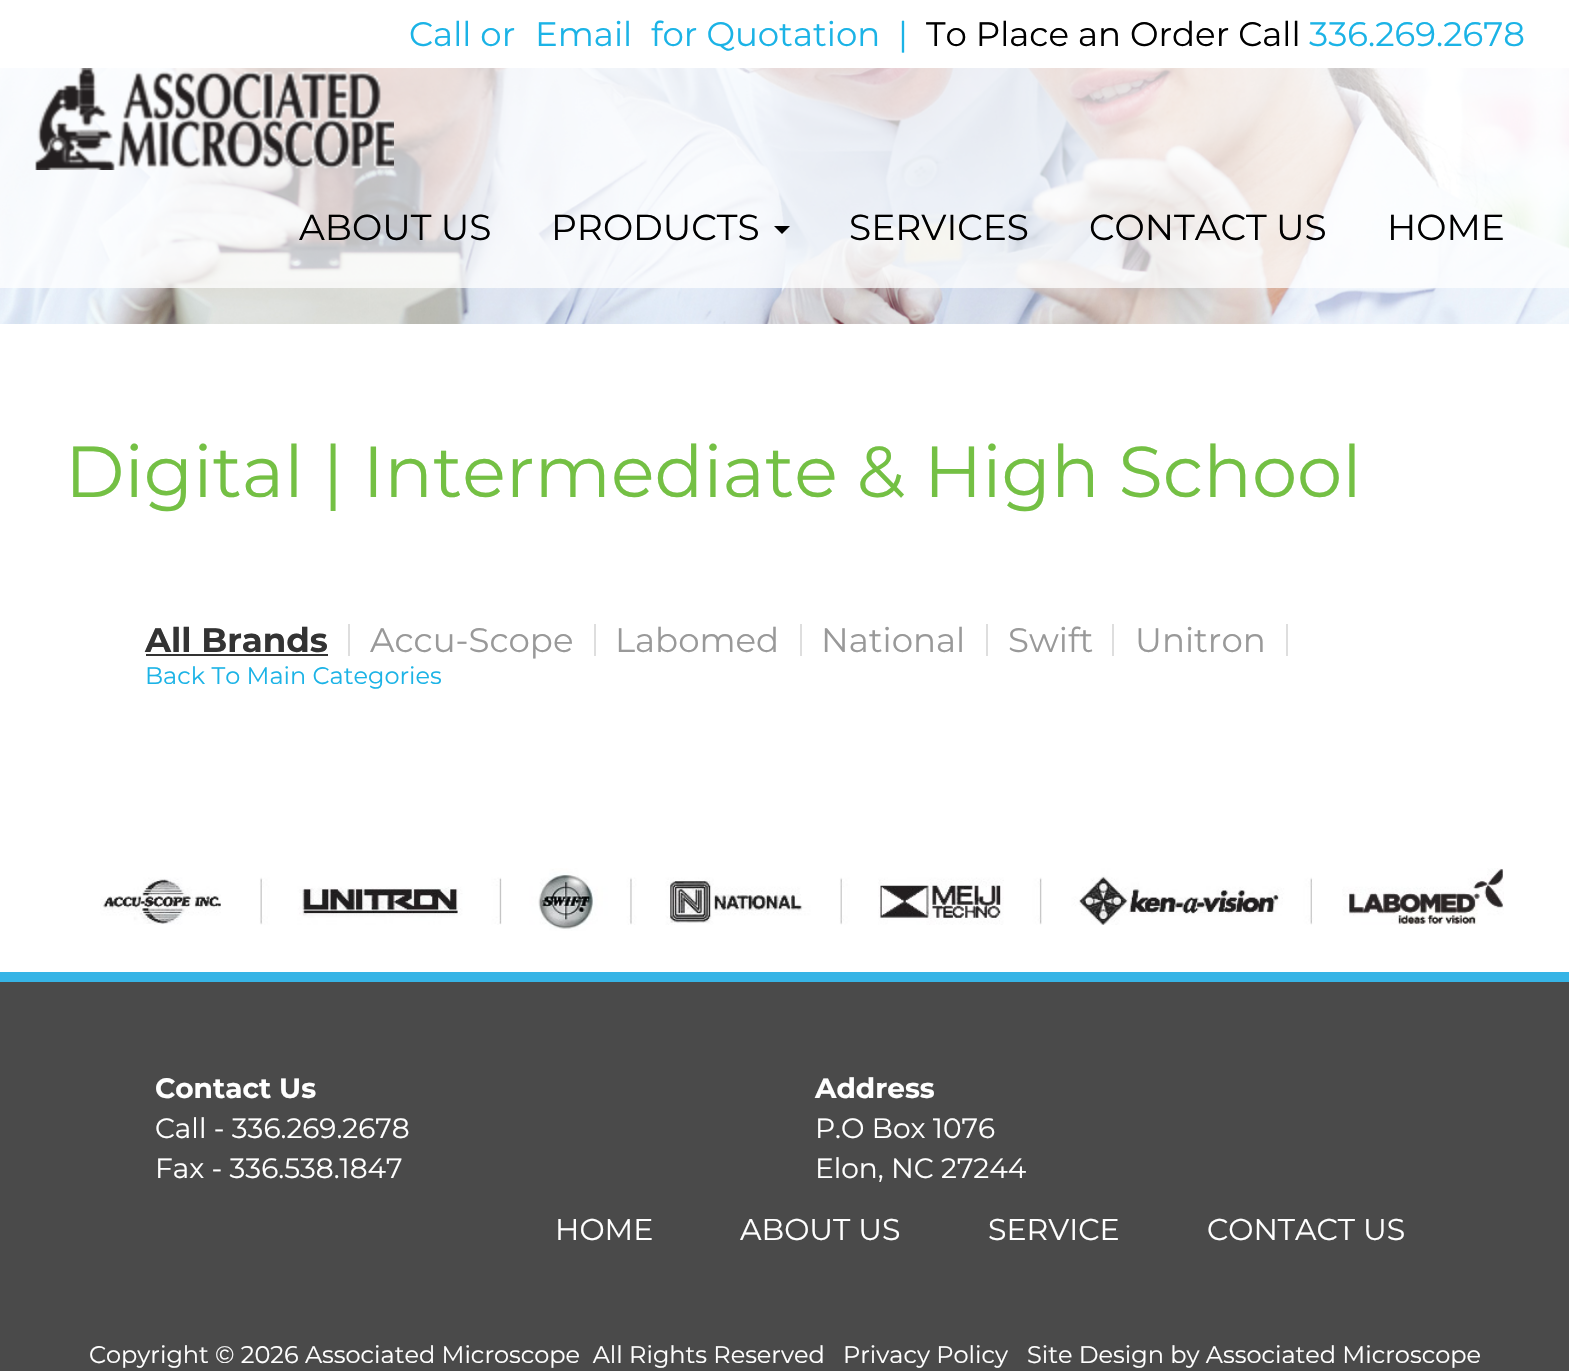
void draw(SkCanvas* canvas) {
	SkPaint fill;
	fill.setAntiAlias(true);
	auto makeFont = [&](const char* family, int weight, float size, bool italic = false) {
		SkFontStyle style(weight, SkFontStyle::kNormal_Width,
			italic ? SkFontStyle::kItalic_Slant : SkFontStyle::kUpright_Slant);
		SkFont result(fontMgr->matchFamilyStyle(family, style), size);
		result.setSubpixel(true);
		return result;
	};
	auto text = [&](const char* s, float x, float y, const SkFont& font) {
		canvas->drawString(s, x, y, font, fill);
	};
	auto box = [&](float l, float t, float r, float b) {
		canvas->drawRect(SkRect::MakeLTRB(l, t, r, b), fill);
	};
	auto picture = [&](const char* path, float l, float t, float r, float b) {
		auto image = SkImages::DeferredFromEncodedData(SkData::MakeFromFileName(path));
		canvas->drawImageRect(image, SkRect::MakeLTRB(l, t, r, b), SkSamplingOptions());
	};
	canvas->clear(0xFFFFFFFF);
	picture("image0.png", 0, 68, 1569, 324);
	fill.setColor(0xBFFFFFFF);
	box(0, 68, 1569, 288);
	picture("image1.png", 35, 68, 394, 170);
	fill.setColor(0xFF000000);
	canvas->drawPath(SkPathBuilder().moveTo(774, 226).lineTo(790, 226).lineTo(782, 234).close().detach(), fill);
	fill.setColor(0xFFDEDEDE);
	box(348, 624, 350, 656);
	fill.setColor(0xFF333333);
	box(146, 654, 328, 656);
	fill.setColor(0xFFDEDEDE);
	box(594, 624, 596, 656);
	box(800, 624, 802, 656);
	box(986, 624, 988, 656);
	box(1112, 624, 1114, 656);
	box(1286, 624, 1288, 656);
	picture("image2.png", 100, 868, 1504, 931);
	fill.setColor(0xFF36B4E6);
	box(0, 972, 1569, 982);
	fill.setColor(0xFF4A4A4A);
	box(0, 982, 1569, 1371);
	auto font1 = makeFont("Montserrat", 400, 34);
	fill.setColor(0xFF1BB3E6);
	text("Call or", 409, 46, font1);
	text("Email", 535, 46, font1);
	text("for Quotation  |", 651, 46, font1);
	fill.setColor(0xFF000000);
	text("To Place an Order Call", 926, 46, font1);
	fill.setColor(0xFF1BB3E6);
	text("336.269.2678", 1309, 46, font1);
	auto font2 = makeFont("Montserrat", 400, 36);
	fill.setColor(0xFF000000);
	text("ABOUT US", 299, 240, font2);
	text("PRODUCTS", 551, 240, font2);
	text("SERVICES", 849, 240, font2);
	text("CONTACT US", 1089, 240, font2);
	text("HOME", 1387, 240, font2);
	auto font3 = makeFont("Montserrat", 400, 72);
	fill.setColor(0xFF74C044);
	text("Digital | Intermediate & High School", 65, 497, font3);
	auto font4 = makeFont("Montserrat", 700, 34);
	fill.setColor(0xFF333333);
	text("All Brands", 145, 652, font4);
	fill.setColor(0xFF999999);
	text("Accu-Scope", 370, 652, font1);
	text("Labomed", 615, 652, font1);
	text("National", 821, 652, font1);
	text("Swift", 1008, 652, font1);
	text("Unitron", 1135, 652, font1);
	auto font5 = makeFont("Montserrat", 400, 24);
	fill.setColor(0xFF1BB3E6);
	text("Back To Main Categories", 145, 684, font5);
	auto font6 = makeFont("Montserrat", 700, 28);
	fill.setColor(0xFFFFFFFF);
	text("Contact Us", 155, 1098, font6);
	auto font7 = makeFont("Montserrat", 400, 28);
	text("Call - 336.269.2678", 155, 1138, font7);
	text("Fax - 336.538.1847", 155, 1178, font7);
	text("Address", 815, 1098, font6);
	text("P.O Box 1076", 815, 1138, font7);
	text("Elon, NC 27244", 815, 1178, font7);
	auto font8 = makeFont("Montserrat", 400, 30);
	text("HOME", 555, 1240, font8);
	text("ABOUT US", 740, 1240, font8);
	text("SERVICE", 988, 1240, font8);
	text("CONTACT US", 1207, 1240, font8);
	text("Copyright © 2026 Associated Microscope  All Rights Reserved", 89, 1363, font5);
	text("Privacy Policy", 843, 1363, font5);
	text("Site Design by Associated Microscope", 1027, 1363, font5);
}
